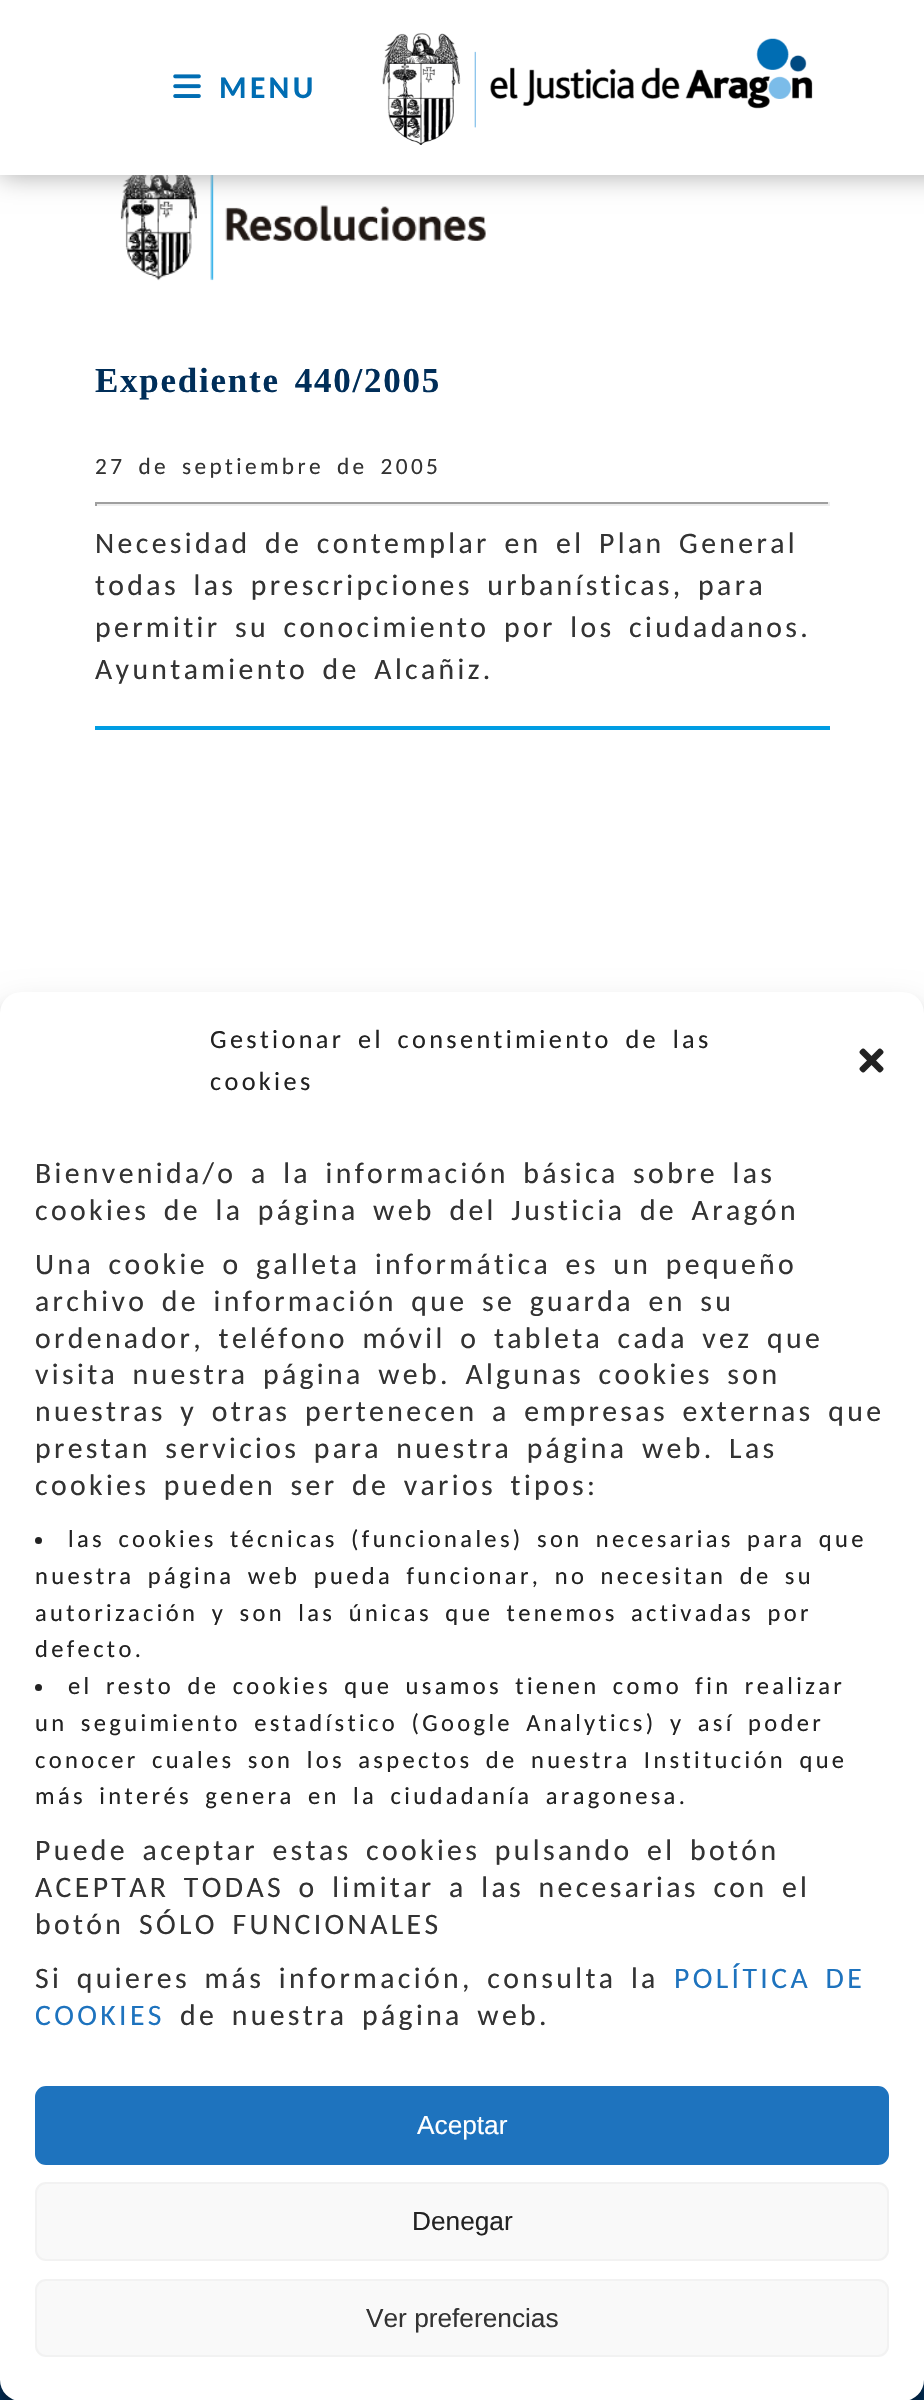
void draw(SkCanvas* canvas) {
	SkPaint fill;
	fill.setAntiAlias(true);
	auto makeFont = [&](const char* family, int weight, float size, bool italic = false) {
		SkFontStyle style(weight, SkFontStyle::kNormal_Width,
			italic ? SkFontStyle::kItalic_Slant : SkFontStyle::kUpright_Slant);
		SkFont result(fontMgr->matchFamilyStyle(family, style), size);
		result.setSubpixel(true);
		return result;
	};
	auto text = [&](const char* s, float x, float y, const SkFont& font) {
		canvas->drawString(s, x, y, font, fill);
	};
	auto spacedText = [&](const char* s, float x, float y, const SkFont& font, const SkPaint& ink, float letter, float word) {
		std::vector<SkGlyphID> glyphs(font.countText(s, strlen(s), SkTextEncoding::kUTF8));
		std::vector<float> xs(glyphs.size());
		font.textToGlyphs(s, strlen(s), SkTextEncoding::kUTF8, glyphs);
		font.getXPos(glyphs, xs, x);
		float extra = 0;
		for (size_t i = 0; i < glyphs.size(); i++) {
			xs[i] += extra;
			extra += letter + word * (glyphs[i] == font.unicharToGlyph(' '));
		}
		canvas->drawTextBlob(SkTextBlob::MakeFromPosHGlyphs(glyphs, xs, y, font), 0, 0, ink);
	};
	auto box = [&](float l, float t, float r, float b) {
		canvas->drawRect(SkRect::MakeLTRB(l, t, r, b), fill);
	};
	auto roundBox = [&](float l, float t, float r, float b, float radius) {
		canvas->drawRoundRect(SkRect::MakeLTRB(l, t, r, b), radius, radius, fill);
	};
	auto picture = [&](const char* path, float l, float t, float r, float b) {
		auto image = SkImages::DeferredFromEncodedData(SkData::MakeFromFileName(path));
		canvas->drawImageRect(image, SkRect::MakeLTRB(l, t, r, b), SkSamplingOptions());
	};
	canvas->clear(0xFFFFFFFF);
	picture("image2.png", 120, 175, 486, 281);
	fill.setColor(0xFFA7A7A7);
	fill.setMaskFilter(SkMaskFilter::MakeBlur(kNormal_SkBlurStyle, 13));
	canvas->drawRect(SkRect::MakeLTRB(0, 0, 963, 175), fill);
	fill.setMaskFilter(nullptr);
	fill.setColor(0xFFFFFFFF);
	box(0, 0, 924, 175);
	picture("image0.png", 173, 74, 201, 98);
	picture("image1.png", 382, 33, 813, 145);
	fill.setColor(0xFF9F9F9F);
	box(95, 502, 830, 504);
	fill.setColor(0xFFEEEEEE);
	box(828, 502, 830, 506);
	box(95, 504, 830, 506);
	fill.setColor(0xFF9F9F9F);
	box(95, 502, 97, 506);
	fill.setColor(0xFF009DE3);
	box(95, 726, 830, 730);
	fill.setColor(0xFF002E59);
	box(0, 2380, 924, 2400);
	fill.setColor(0x3B000000);
	fill.setMaskFilter(SkMaskFilter::MakeBlur(kNormal_SkBlurStyle, 5));
	canvas->drawRoundRect(SkRect::MakeLTRB(0, 1003, 924, 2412), 21, 21, fill);
	fill.setMaskFilter(nullptr);
	fill.setColor(0x30000000);
	fill.setMaskFilter(SkMaskFilter::MakeBlur(kNormal_SkBlurStyle, 17.5f));
	canvas->drawRoundRect(SkRect::MakeLTRB(0, 1010, 924, 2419), 21, 21, fill);
	fill.setMaskFilter(nullptr);
	fill.setColor(0xFFFFFFFF);
	roundBox(0, 992, 924, 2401, 21);
	picture("image3.png", 859, 1048, 884, 1073);
	fill.setColor(0xFF222222);
	canvas->drawCircle(38.5f, 1540.5f, 3.5f, fill);
	canvas->drawCircle(38.5f, 1687.5f, 3.5f, fill);
	fill.setColor(0xFF1E73BE);
	canvas->drawRoundRect(SkRect::MakeLTRB(36, 2087, 888, 2164), 10, 10, fill);
	fill.setStyle(SkPaint::kStroke_Style);
	fill.setStrokeWidth(2);
	canvas->drawRoundRect(SkRect::MakeLTRB(36, 2087, 888, 2164), 10, 10, fill);
	fill.setStyle(SkPaint::kFill_Style);
	fill.setColor(0xFFF9F9F9);
	canvas->drawRoundRect(SkRect::MakeLTRB(36, 2183, 888, 2260), 10, 10, fill);
	fill.setStyle(SkPaint::kStroke_Style);
	fill.setColor(0xFFF2F2F2);
	canvas->drawRoundRect(SkRect::MakeLTRB(36, 2183, 888, 2260), 10, 10, fill);
	fill.setStyle(SkPaint::kFill_Style);
	fill.setColor(0xFFF9F9F9);
	canvas->drawRoundRect(SkRect::MakeLTRB(36, 2280, 888, 2356), 10, 10, fill);
	fill.setStyle(SkPaint::kStroke_Style);
	fill.setColor(0xFFF2F2F2);
	canvas->drawRoundRect(SkRect::MakeLTRB(36, 2280, 888, 2356), 10, 10, fill);
	auto font1 = makeFont("Carlito", 700, 31.5f);
	fill.setStyle(SkPaint::kFill_Style);
	fill.setColor(0xFF006DB3);
	spacedText("MENU", 219, 98, font1, fill, 3.35f, 0);
	auto font2 = makeFont("Liberation Serif", 700, 35);
	fill.setColor(0xFF002E59);
	spacedText("Expediente 440/2005", 95, 392, font2, fill, 1.75f, 4.5f);
	auto font3 = makeFont("Carlito", 400, 23.3f);
	fill.setColor(0xFF333333);
	spacedText("27 de septiembre de 2005", 95, 474, font3, fill, 3.35f, 4.5f);
	auto font4 = makeFont("Carlito", 400, 29.75f);
	spacedText("Necesidad de contemplar en el Plan General", 95, 553, font4, fill, 3.35f, 4.5f);
	spacedText("todas las prescripciones urbanísticas, para", 95, 595, font4, fill, 3.35f, 4.5f);
	spacedText("permitir su conocimiento por los ciudadanos.", 95, 637, font4, fill, 3.35f, 4.5f);
	spacedText("Ayuntamiento de Alcañiz.", 95, 679, font4, fill, 3.35f, 4.5f);
	auto font5 = makeFont("Carlito", 400, 26.25f);
	fill.setColor(0xFF222222);
	spacedText("Gestionar el consentimiento de las", 210, 1048, font5, fill, 3.35f, 4.5f);
	spacedText("cookies", 210, 1090, font5, fill, 3.35f, 0);
	fill.setColor(0xFF333333);
	spacedText("Bienvenida/o a la información básica sobre las", 35, 1183, font4, fill, 3.35f, 4.5f);
	spacedText("cookies de la página web del Justicia de Aragón", 35, 1220, font4, fill, 3.35f, 4.5f);
	spacedText("Una cookie o galleta informática es un pequeño", 35, 1274, font4, fill, 3.35f, 4.5f);
	spacedText("archivo de información que se guarda en su", 35, 1311, font4, fill, 3.35f, 4.5f);
	spacedText("ordenador, teléfono móvil o tableta cada vez que", 35, 1348, font4, fill, 3.35f, 4.5f);
	spacedText("visita nuestra página web. Algunas cookies son", 35, 1384, font4, fill, 3.35f, 4.5f);
	spacedText("nuestras y otras pertenecen a empresas externas que", 35, 1421, font4, fill, 3.35f, 4.5f);
	spacedText("prestan servicios para nuestra página web. Las", 35, 1458, font4, fill, 3.35f, 4.5f);
	spacedText("cookies pueden ser de varios tipos:", 35, 1495, font4, fill, 3.35f, 4.5f);
	auto font6 = makeFont("Carlito", 400, 24.5f);
	fill.setColor(0xFF222222);
	spacedText("las cookies técnicas (funcionales) son necesarias para que", 68, 1547, font6, fill, 3.35f, 4.5f);
	spacedText("nuestra página web pueda funcionar, no necesitan de su", 35, 1584, font6, fill, 3.35f, 4.5f);
	spacedText("autorización y son las únicas que tenemos activadas por", 35, 1621, font6, fill, 3.35f, 4.5f);
	spacedText("defecto.", 35, 1657, font6, fill, 3.35f, 0);
	spacedText("el resto de cookies que usamos tienen como fin realizar", 68, 1694, font6, fill, 3.35f, 4.5f);
	spacedText("un seguimiento estadístico (Google Analytics) y así poder", 35, 1731, font6, fill, 3.35f, 4.5f);
	spacedText("conocer cuales son los aspectos de nuestra Institución que", 35, 1768, font6, fill, 3.35f, 4.5f);
	spacedText("más interés genera en la ciudadanía aragonesa.", 35, 1804, font6, fill, 3.35f, 4.5f);
	fill.setColor(0xFF333333);
	spacedText("Puede aceptar estas cookies pulsando el botón", 35, 1860, font4, fill, 3.35f, 4.5f);
	spacedText("ACEPTAR TODAS o limitar a las necesarias con el", 35, 1897, font4, fill, 3.35f, 4.5f);
	spacedText("botón SÓLO FUNCIONALES", 35, 1934, font4, fill, 3.35f, 4.5f);
	spacedText("Si quieres más información, consulta la", 35, 1988, font4, fill, 3.35f, 4.5f);
	fill.setColor(0xFF1E73BE);
	spacedText("POLÍTICA DE", 674, 1988, font4, fill, 3.35f, 4.5f);
	spacedText("COOKIES", 35, 2025, font4, fill, 3.35f, 0);
	fill.setColor(0xFF333333);
	spacedText("de nuestra página web.", 180, 2025, font4, fill, 3.35f, 4.5f);
	auto font7 = makeFont("Liberation Sans", 400, 26.25f);
	fill.setColor(0xFFFFFFFF);
	text("Aceptar", 417, 2134, font7);
	fill.setColor(0xFF222222);
	text("Denegar", 412, 2230, font7);
	fill.setColor(0xFF333333);
	text("Ver preferencias", 366, 2327, font7);
}
